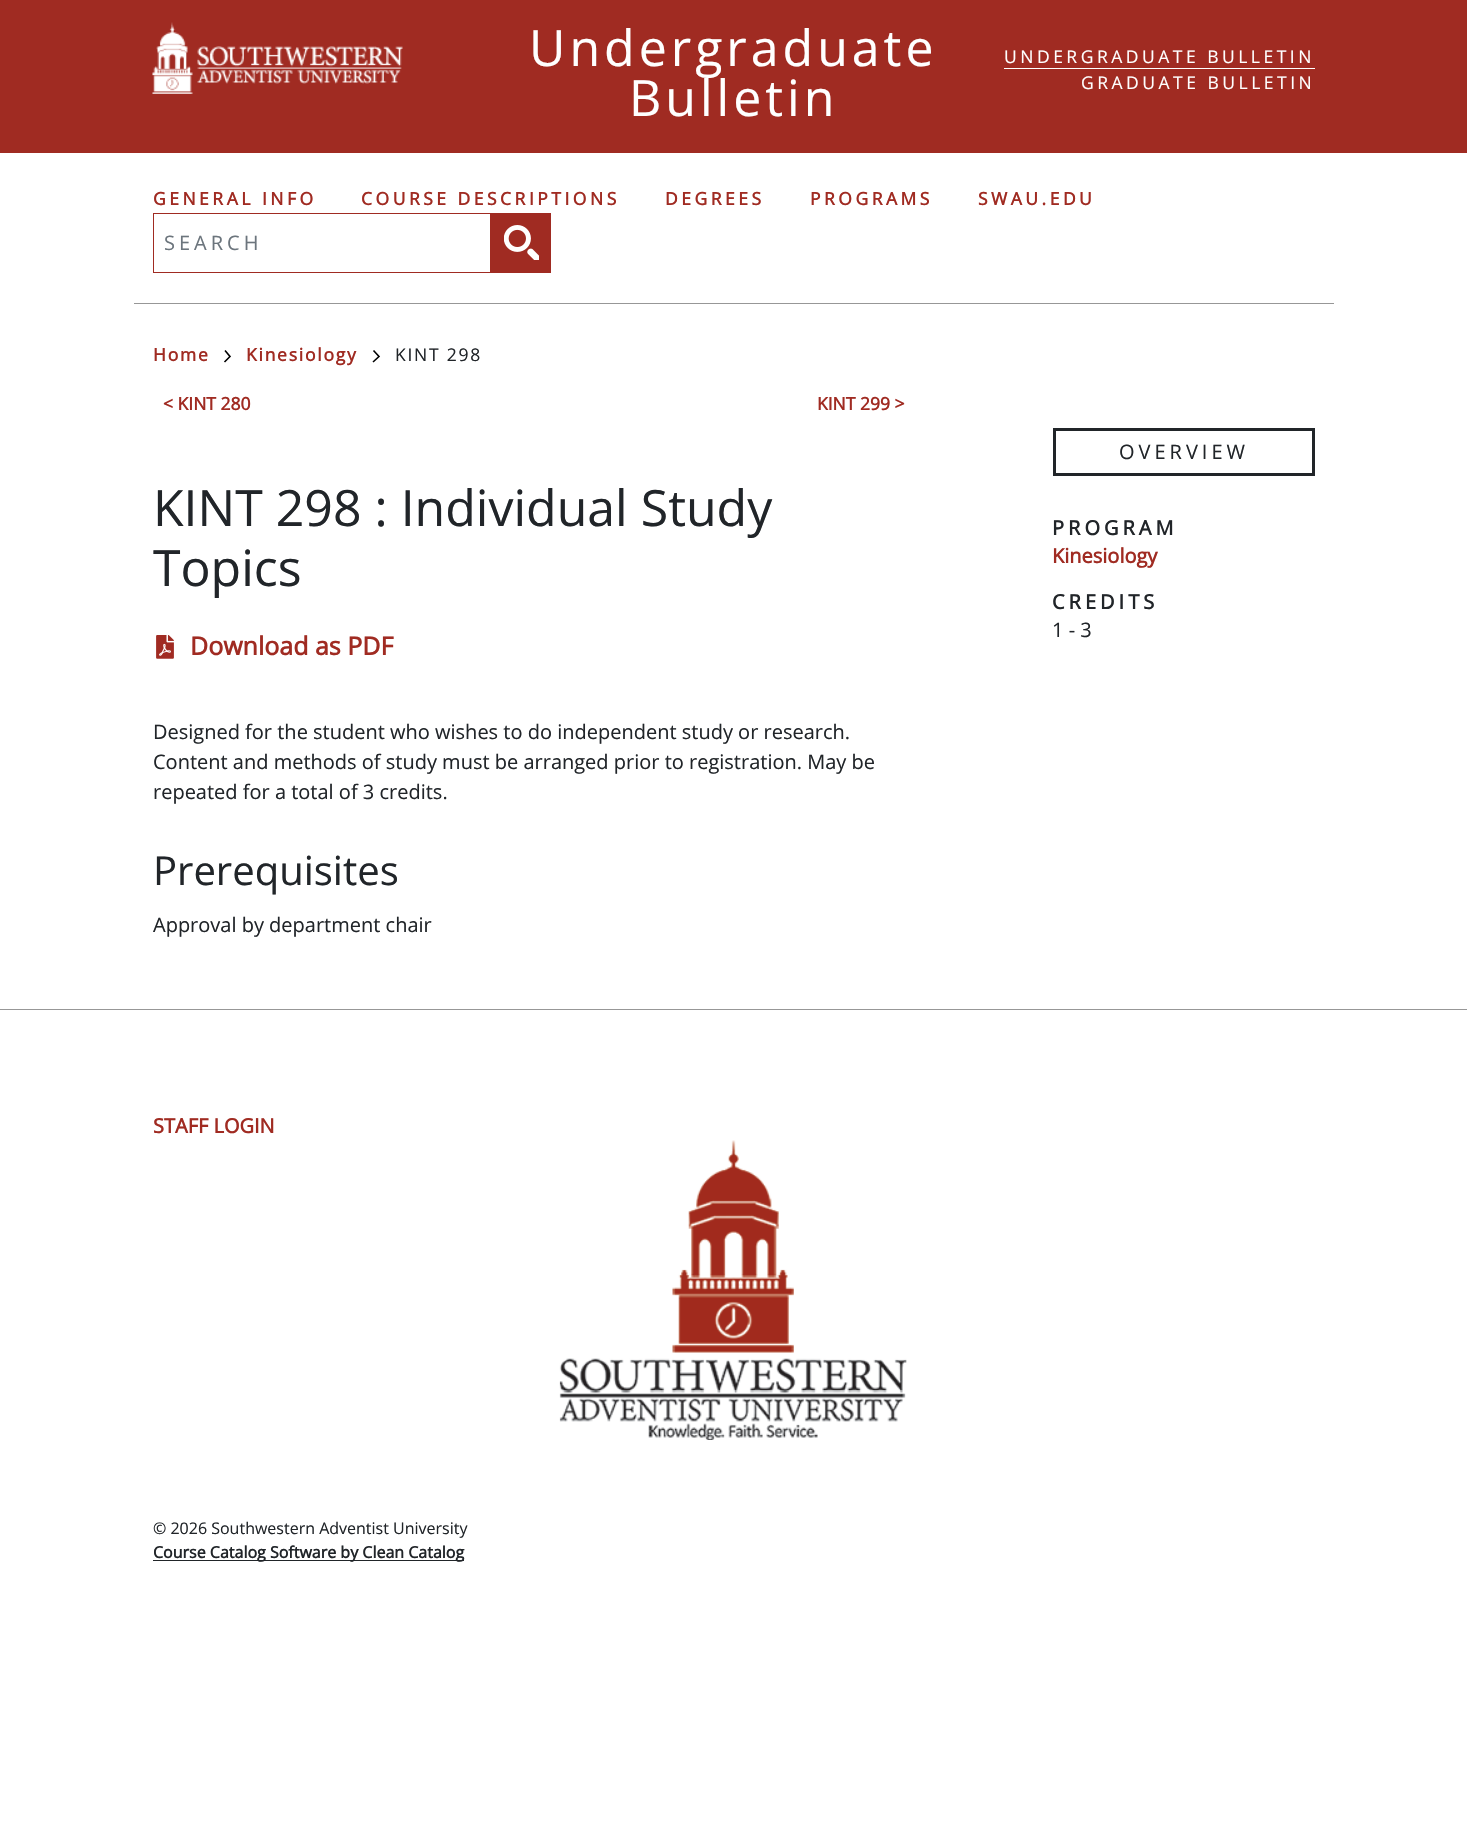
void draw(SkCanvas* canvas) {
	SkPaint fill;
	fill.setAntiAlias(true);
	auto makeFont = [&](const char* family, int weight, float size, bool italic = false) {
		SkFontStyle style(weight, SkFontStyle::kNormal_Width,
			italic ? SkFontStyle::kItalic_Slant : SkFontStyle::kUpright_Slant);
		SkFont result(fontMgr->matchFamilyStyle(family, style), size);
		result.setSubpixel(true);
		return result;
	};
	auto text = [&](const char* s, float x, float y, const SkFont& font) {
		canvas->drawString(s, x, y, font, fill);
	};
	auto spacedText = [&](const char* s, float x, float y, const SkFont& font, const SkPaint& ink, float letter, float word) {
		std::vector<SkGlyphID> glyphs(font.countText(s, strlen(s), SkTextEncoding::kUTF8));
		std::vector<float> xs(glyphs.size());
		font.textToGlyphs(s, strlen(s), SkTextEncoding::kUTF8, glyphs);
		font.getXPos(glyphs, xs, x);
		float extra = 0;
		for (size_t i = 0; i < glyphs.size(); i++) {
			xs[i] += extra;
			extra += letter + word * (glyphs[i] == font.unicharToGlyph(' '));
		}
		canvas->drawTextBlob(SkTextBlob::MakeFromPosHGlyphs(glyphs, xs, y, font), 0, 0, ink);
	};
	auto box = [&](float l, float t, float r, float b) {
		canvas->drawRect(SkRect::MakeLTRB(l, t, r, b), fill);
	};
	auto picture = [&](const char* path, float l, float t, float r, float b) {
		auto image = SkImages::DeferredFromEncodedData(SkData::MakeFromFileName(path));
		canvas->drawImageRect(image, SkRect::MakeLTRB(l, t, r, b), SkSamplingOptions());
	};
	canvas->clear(0xFFFFFFFF);
	fill.setColor(0xFFA02B22);
	box(0, 0, 1467, 153);
	picture("image0.png", 152, 22, 403, 94);
	fill.setColor(0xFFFFFFFF);
	box(1004, 68, 1315, 69);
	fill.setColor(0xFF979797);
	box(134, 303, 1334, 304);
	fill.setStyle(SkPaint::kStroke_Style);
	fill.setStrokeWidth(1);
	fill.setColor(0xFFA02B22);
	canvas->drawRect(SkRect::MakeLTRB(153.5f, 213.5f, 490.5f, 272.5f), fill);
	fill.setStyle(SkPaint::kFill_Style);
	box(491, 213, 551, 273);
	picture("image1.png", 504, 225, 539, 260);
	fill.setStyle(SkPaint::kStroke_Style);
	fill.setStrokeWidth(1.6f);
	fill.setColor(0xFF000000);
	canvas->drawPath(SkPathBuilder().moveTo(224.5f, 362).lineTo(230, 356.5f).lineTo(225, 350.5f).detach(), fill);
	canvas->drawPath(SkPathBuilder().moveTo(373, 362).lineTo(379, 356.5f).lineTo(373.5f, 350.5f).detach(), fill);
	picture("image2.png", 156, 635, 174, 659);
	fill.setStrokeWidth(3);
	fill.setColor(0xFF212529);
	canvas->drawRect(SkRect::MakeLTRB(1054.5f, 429.5f, 1313.5f, 474.5f), fill);
	fill.setStyle(SkPaint::kFill_Style);
	fill.setColor(0xFF979797);
	box(0, 1009, 1467, 1010);
	picture("image3.png", 559, 1140, 907, 1440);
	fill.setColor(0xFF212529);
	box(153, 1560, 464, 1561);
	auto font1 = makeFont("Open Sans", 400, 50);
	fill.setColor(0xFFFFFFFF);
	spacedText("Undergraduate", 529, 66, font1, fill, 4, 0);
	spacedText("Bulletin", 629, 116, font1, fill, 4, 0);
	auto font2 = makeFont("Open Sans", 400, 17.5f);
	spacedText("UNDERGRADUATE BULLETIN", 1004, 63, font2, fill, 3.5f, 0);
	spacedText("GRADUATE BULLETIN", 1081, 89, font2, fill, 3.5f, 0);
	auto font3 = makeFont("Open Sans", 700, 17.5f);
	fill.setColor(0xFFA02B22);
	spacedText("GENERAL INFO", 153, 205, font3, fill, 3.5f, 0);
	spacedText("COURSE DESCRIPTIONS", 361, 205, font3, fill, 3.5f, 0);
	spacedText("DEGREES", 665, 205, font3, fill, 3.5f, 0);
	spacedText("PROGRAMS", 810, 205, font3, fill, 3.5f, 0);
	spacedText("SWAU.EDU", 978, 205, font3, fill, 3.5f, 0);
	auto font4 = makeFont("Open Sans", 400, 20);
	fill.setColor(0xFF6C757D);
	spacedText("SEARCH", 164, 250, font4, fill, 4, 0);
	fill.setColor(0xFFA02B22);
	spacedText("Home", 153, 361, font3, fill, 1.75f, 0);
	spacedText("Kinesiology", 246, 361, font3, fill, 1.75f, 0);
	fill.setColor(0xFF212529);
	spacedText("KINT 298", 395, 361, font2, fill, 1.75f, 0);
	fill.setColor(0xFFA02B22);
	text("< KINT 280", 163, 410, font3);
	text("KINT 299 >", 817, 410, font3);
	fill.setColor(0xFF212529);
	text("KINT 298 : Individual Study", 153, 526, font1);
	text("Topics", 153, 586, font1);
	auto font5 = makeFont("Open Sans", 700, 25);
	fill.setColor(0xFFA02B22);
	text("Download as PDF", 190, 655, font5);
	fill.setColor(0xFF212529);
	text("Designed for the student who wishes to do independent study or research.", 153, 739, font4);
	text("Content and methods of study must be arranged prior to registration. May be", 153, 769, font4);
	text("repeated for a total of 3 credits.", 153, 799, font4);
	auto font6 = makeFont("Open Sans", 400, 40);
	text("Prerequisites", 153, 885, font6);
	text("Approval by department chair", 153, 932, font4);
	spacedText("OVERVIEW", 1119, 459, font4, fill, 4, 0);
	auto font7 = makeFont("Open Sans", 700, 20);
	spacedText("PROGRAM", 1052, 535, font7, fill, 4, 0);
	fill.setColor(0xFFA02B22);
	text("Kinesiology", 1052, 563, font7);
	fill.setColor(0xFF212529);
	spacedText("CREDITS", 1052, 609, font7, fill, 4, 0);
	text("1 - 3", 1052, 637, font4);
	fill.setColor(0xFFA02B22);
	text("STAFF LOGIN", 153, 1133, font7);
	auto font8 = makeFont("Open Sans", 400, 16);
	fill.setColor(0xFF212529);
	text("© 2026 Southwestern Adventist University", 153, 1534, font8);
	auto font9 = makeFont("Open Sans", 700, 16);
	text("Course Catalog Software by Clean Catalog", 153, 1558, font9);
}
